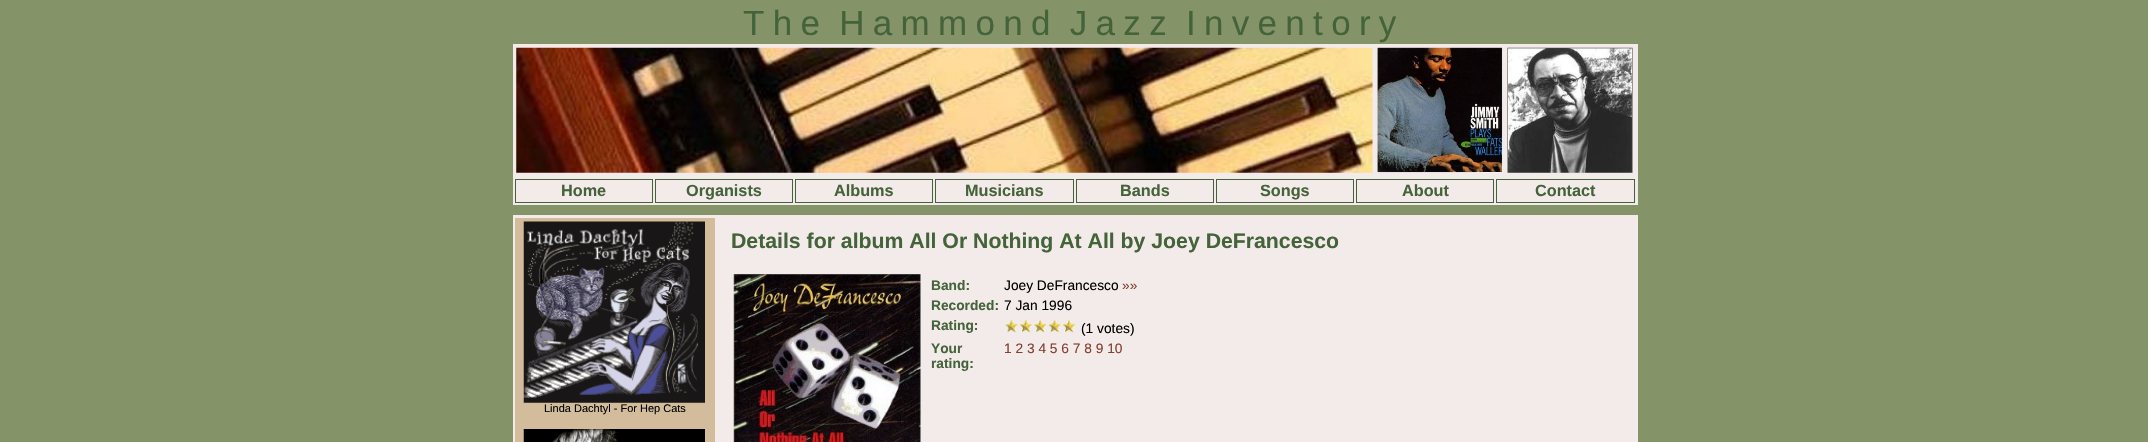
void draw(SkCanvas* canvas) {
	SkPaint fill;
	fill.setAntiAlias(true);
	auto makeFont = [&](const char* family, int weight, float size, bool italic = false) {
		SkFontStyle style(weight, SkFontStyle::kNormal_Width,
			italic ? SkFontStyle::kItalic_Slant : SkFontStyle::kUpright_Slant);
		SkFont result(fontMgr->matchFamilyStyle(family, style), size);
		result.setSubpixel(true);
		return result;
	};
	auto text = [&](const char* s, float x, float y, const SkFont& font) {
		canvas->drawString(s, x, y, font, fill);
	};
	auto spacedText = [&](const char* s, float x, float y, const SkFont& font, const SkPaint& ink, float letter, float word) {
		std::vector<SkGlyphID> glyphs(font.countText(s, strlen(s), SkTextEncoding::kUTF8));
		std::vector<float> xs(glyphs.size());
		font.textToGlyphs(s, strlen(s), SkTextEncoding::kUTF8, glyphs);
		font.getXPos(glyphs, xs, x);
		float extra = 0;
		for (size_t i = 0; i < glyphs.size(); i++) {
			xs[i] += extra;
			extra += letter + word * (glyphs[i] == font.unicharToGlyph(' '));
		}
		canvas->drawTextBlob(SkTextBlob::MakeFromPosHGlyphs(glyphs, xs, y, font), 0, 0, ink);
	};
	auto box = [&](float l, float t, float r, float b) {
		canvas->drawRect(SkRect::MakeLTRB(l, t, r, b), fill);
	};
	auto picture = [&](const char* path, float l, float t, float r, float b) {
		auto image = SkImages::DeferredFromEncodedData(SkData::MakeFromFileName(path));
		canvas->drawImageRect(image, SkRect::MakeLTRB(l, t, r, b), SkSamplingOptions());
	};
	canvas->clear(0xFF859369);
	fill.setColor(0xFFF3EBEA);
	box(513, 44, 1638, 205);
	picture("image0.png", 516, 47, 1373, 173);
	picture("image1.png", 1377, 47, 1503, 173);
	picture("image2.png", 1507, 47, 1633, 173);
	fill.setStyle(SkPaint::kStroke_Style);
	fill.setStrokeWidth(1);
	fill.setColor(0xFF45633A);
	canvas->drawRect(SkRect::MakeLTRB(515.5f, 179.5f, 652.5f, 202.5f), fill);
	canvas->drawRect(SkRect::MakeLTRB(655.5f, 179.5f, 792.5f, 202.5f), fill);
	canvas->drawRect(SkRect::MakeLTRB(795.5f, 179.5f, 932.5f, 202.5f), fill);
	canvas->drawRect(SkRect::MakeLTRB(935.5f, 179.5f, 1073.5f, 202.5f), fill);
	canvas->drawRect(SkRect::MakeLTRB(1076.5f, 179.5f, 1213.5f, 202.5f), fill);
	canvas->drawRect(SkRect::MakeLTRB(1216.5f, 179.5f, 1353.5f, 202.5f), fill);
	canvas->drawRect(SkRect::MakeLTRB(1356.5f, 179.5f, 1493.5f, 202.5f), fill);
	canvas->drawRect(SkRect::MakeLTRB(1496.5f, 179.5f, 1634.5f, 202.5f), fill);
	fill.setStyle(SkPaint::kFill_Style);
	fill.setColor(0xFFF3EBEA);
	box(513, 215, 1638, 442);
	picture("image3.png", 733, 274, 922, 442);
	picture("image4.png", 1005, 319, 1076, 333);
	fill.setColor(0xFFD2BC9B);
	box(515, 218, 715, 442);
	picture("image5.png", 523, 221, 705, 403);
	picture("image6.png", 523, 429, 705, 442);
	auto font1 = makeFont("Liberation Sans", 400, 35);
	fill.setColor(0xFF45633A);
	spacedText("The Hammond Jazz Inventory", 743, 35, font1, fill, 8.3f, -7);
	auto font2 = makeFont("Liberation Sans", 700, 16.25f);
	text("Home", 561, 196, font2);
	text("Organists", 686, 196, font2);
	text("Albums", 834, 196, font2);
	text("Musicians", 965, 196, font2);
	text("Bands", 1120, 196, font2);
	text("Songs", 1260, 196, font2);
	text("About", 1402, 196, font2);
	text("Contact", 1535, 196, font2);
	auto font3 = makeFont("Liberation Sans", 700, 21.25f);
	text("Details for album All Or Nothing At All by Joey DeFrancesco", 731, 248, font3);
	auto font4 = makeFont("Liberation Sans", 700, 13.75f);
	text("Band:", 931, 290, font4);
	auto font5 = makeFont("Liberation Sans", 400, 13.75f);
	fill.setColor(0xFF000000);
	text("Joey DeFrancesco", 1004, 290, font5);
	fill.setColor(0xFF843E2D);
	text("»»", 1122, 290, font5);
	fill.setColor(0xFF45633A);
	text("Recorded:", 931, 310, font4);
	fill.setColor(0xFF000000);
	text("7 Jan 1996", 1004, 310, font5);
	fill.setColor(0xFF45633A);
	text("Rating:", 931, 330, font4);
	fill.setColor(0xFF000000);
	text("(1 votes)", 1081, 333, font5);
	fill.setColor(0xFF45633A);
	text("Your", 931, 353, font4);
	text("rating:", 931, 368, font4);
	fill.setColor(0xFF843E2D);
	text("1 2 3 4 5 6 7 8 9 10", 1004, 353, font5);
	auto font6 = makeFont("Liberation Sans", 400, 11);
	fill.setColor(0xFF000000);
	text("Linda Dachtyl - For Hep Cats", 544, 412, font6);
}
